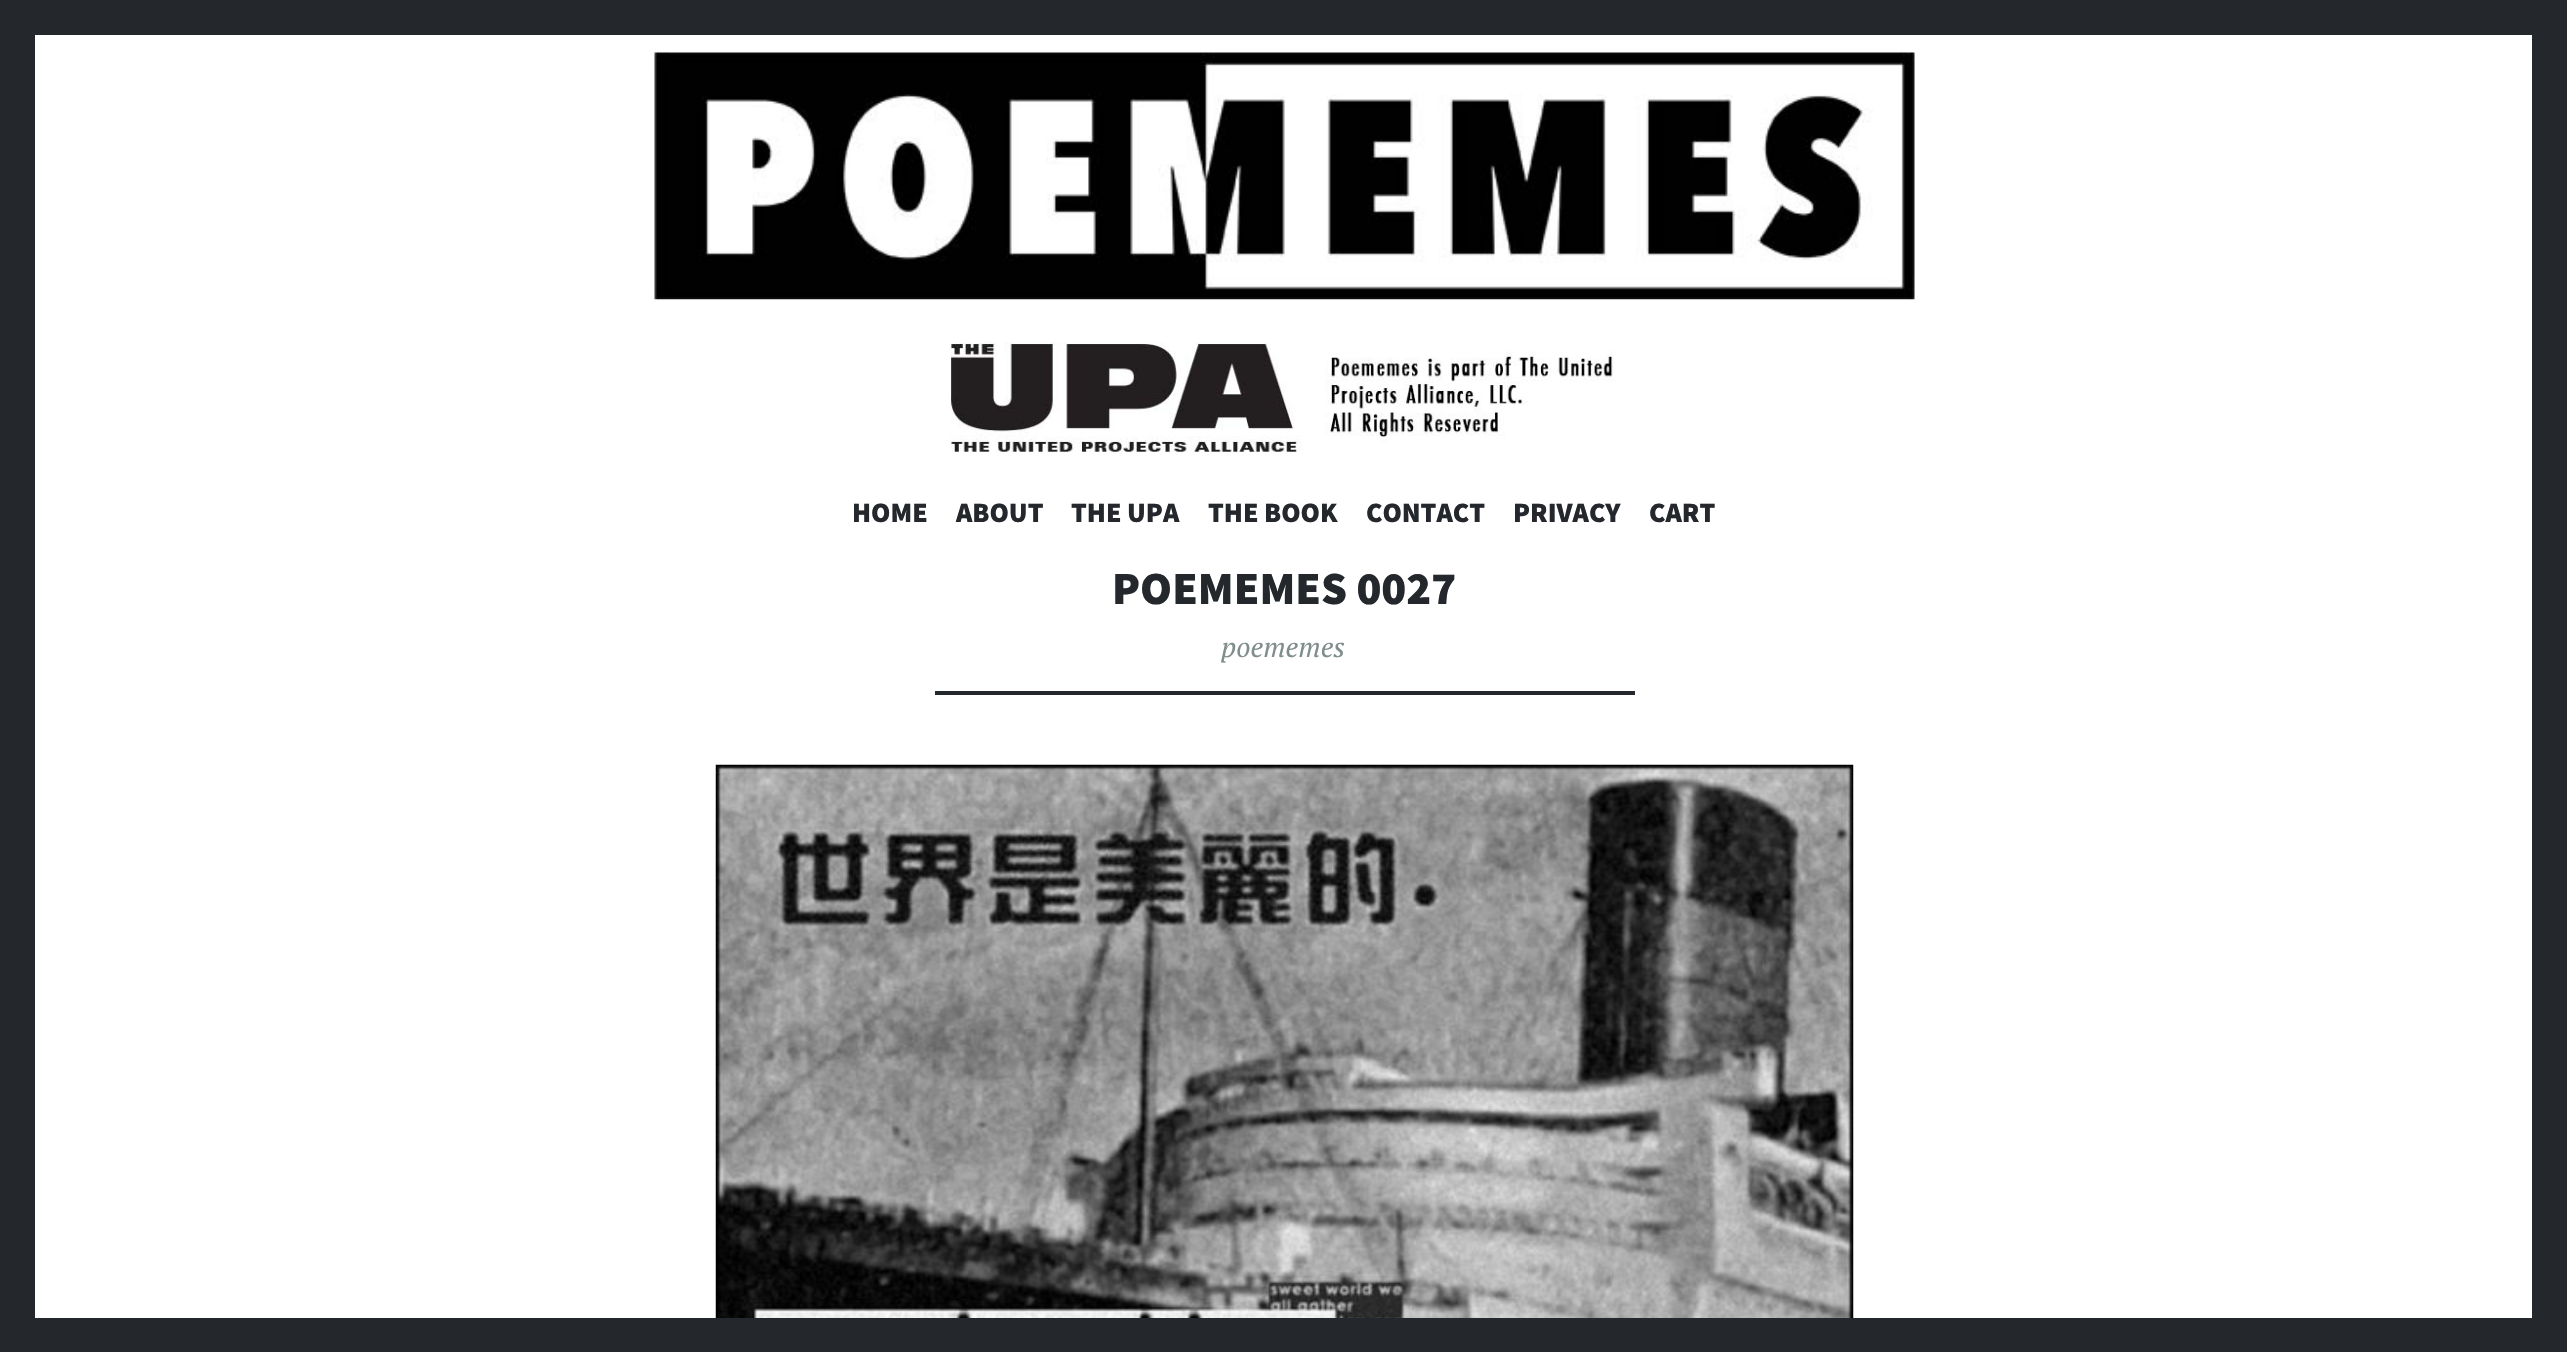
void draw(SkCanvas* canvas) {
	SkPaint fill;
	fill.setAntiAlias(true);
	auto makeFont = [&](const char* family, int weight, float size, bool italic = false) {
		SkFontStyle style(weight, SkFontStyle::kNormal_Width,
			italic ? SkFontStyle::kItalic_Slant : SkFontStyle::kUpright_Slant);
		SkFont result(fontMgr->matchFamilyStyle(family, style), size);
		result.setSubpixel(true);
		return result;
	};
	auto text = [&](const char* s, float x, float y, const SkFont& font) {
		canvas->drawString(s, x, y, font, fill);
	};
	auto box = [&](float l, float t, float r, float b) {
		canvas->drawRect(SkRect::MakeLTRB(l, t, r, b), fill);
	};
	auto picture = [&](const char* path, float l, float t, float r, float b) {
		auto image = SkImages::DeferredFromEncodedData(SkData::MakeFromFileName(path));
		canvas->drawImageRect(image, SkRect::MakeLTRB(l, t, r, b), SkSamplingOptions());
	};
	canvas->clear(0xFF24282D);
	fill.setColor(0xFFFFFFFF);
	box(35, 35, 2532, 1318);
	picture("image0.png", 654, 52, 1915, 300);
	picture("image1.png", 950, 342, 1614, 452);
	fill.setColor(0xFF24282D);
	box(935, 691, 1635, 695);
	picture("image2.png", 715, 764, 1854, 1318);
	auto font1 = makeFont("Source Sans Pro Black", 900, 28);
	text("HOME", 852, 522, font1);
	text("ABOUT", 956, 522, font1);
	text("THE UPA", 1071, 522, font1);
	text("THE BOOK", 1208, 522, font1);
	text("CONTACT", 1366, 522, font1);
	text("PRIVACY", 1513, 522, font1);
	text("CART", 1649, 522, font1);
	auto font2 = makeFont("Source Sans Pro Black", 900, 46.25f);
	text("POEMEMES 0027", 1112, 604, font2);
	auto font3 = makeFont("PT Serif", 400, 28, true);
	fill.setColor(0xFF7F8D8C);
	text("poememes", 1221, 657, font3);
}
